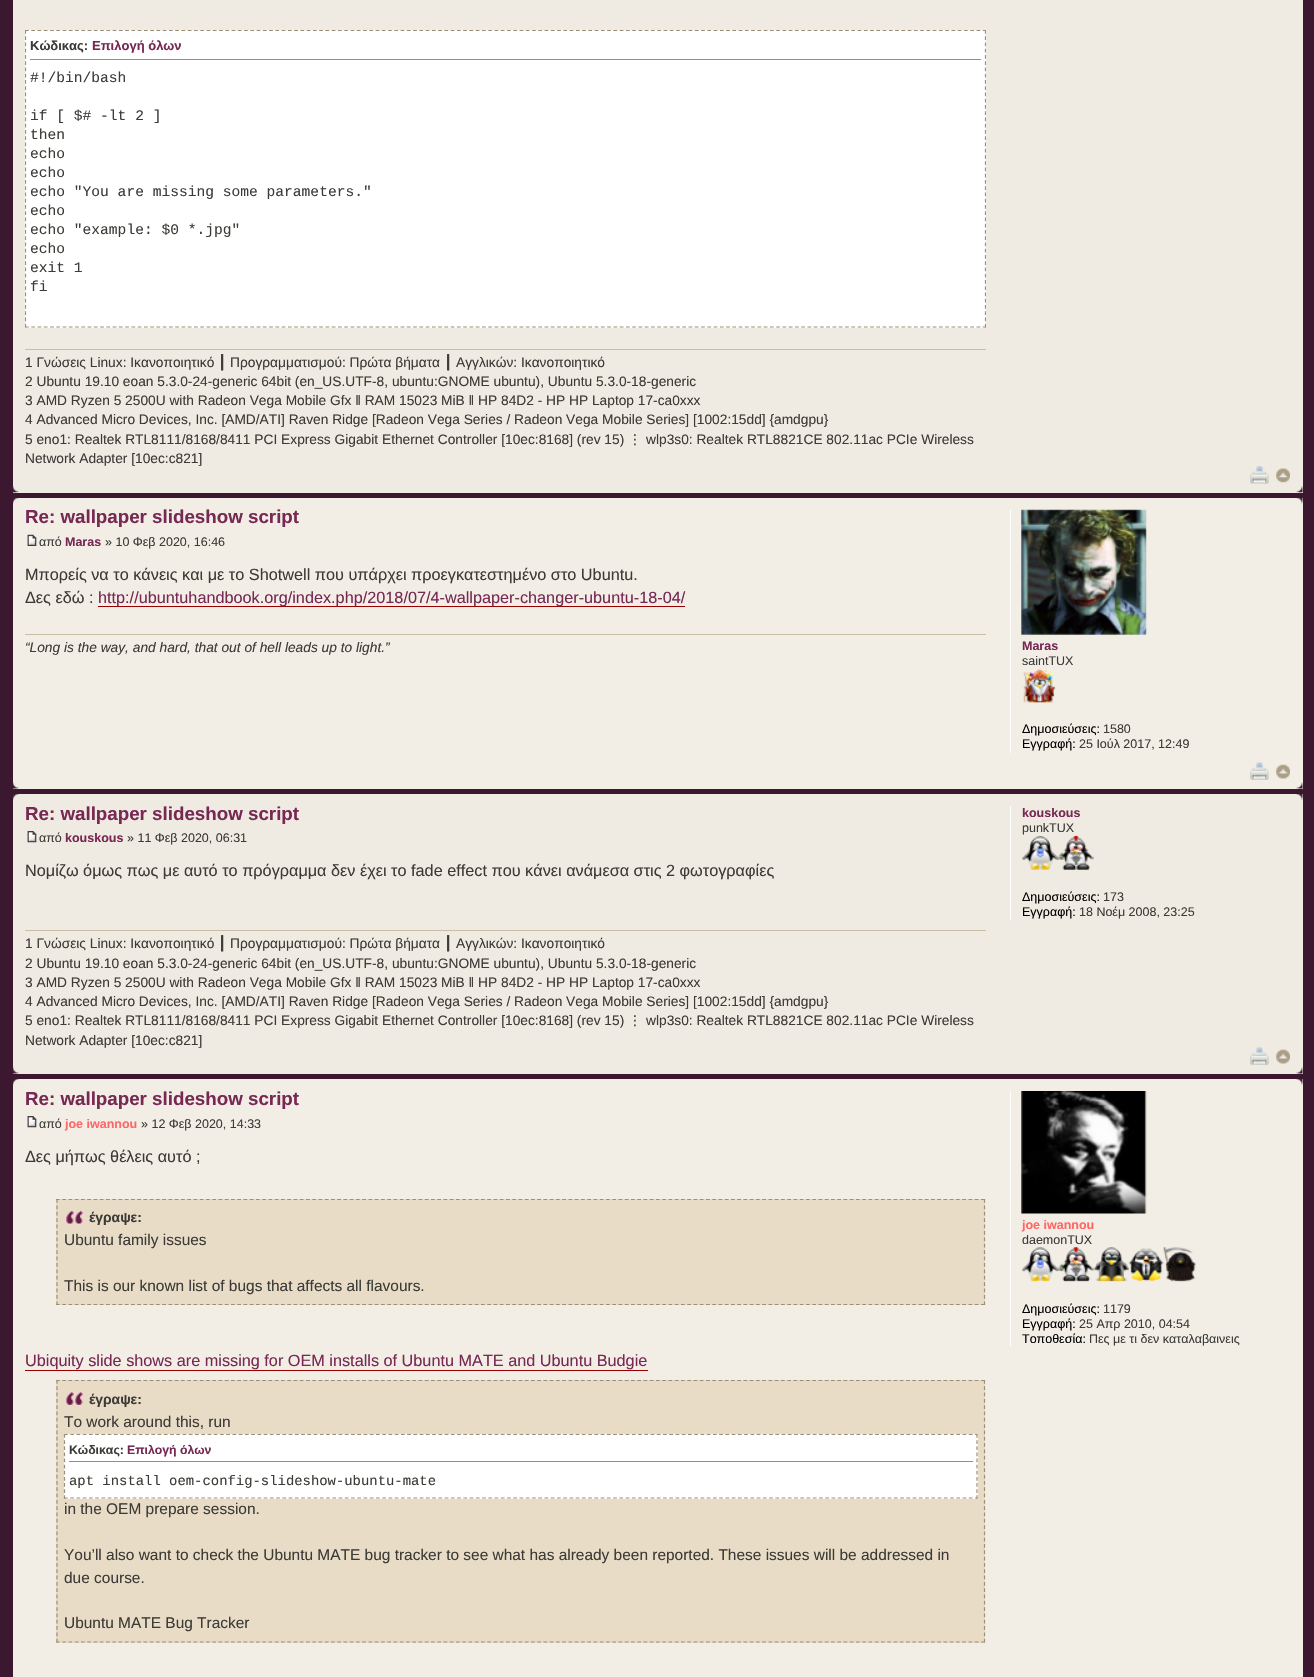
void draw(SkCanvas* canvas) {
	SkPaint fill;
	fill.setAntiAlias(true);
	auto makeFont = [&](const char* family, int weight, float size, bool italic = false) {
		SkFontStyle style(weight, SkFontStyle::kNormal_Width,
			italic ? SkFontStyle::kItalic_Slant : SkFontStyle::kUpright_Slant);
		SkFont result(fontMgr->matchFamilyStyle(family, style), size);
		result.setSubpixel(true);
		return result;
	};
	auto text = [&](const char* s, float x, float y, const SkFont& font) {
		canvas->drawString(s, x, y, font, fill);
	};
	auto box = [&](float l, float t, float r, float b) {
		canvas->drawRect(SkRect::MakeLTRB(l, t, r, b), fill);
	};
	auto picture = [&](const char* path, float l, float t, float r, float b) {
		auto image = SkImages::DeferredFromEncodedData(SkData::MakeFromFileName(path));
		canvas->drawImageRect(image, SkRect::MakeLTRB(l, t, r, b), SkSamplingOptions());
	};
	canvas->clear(0xFF3B1830);
	fill.setColor(0xFFF0EBE2);
	box(13, 0, 1303, 493);
	fill.setColor(0xFFFFFFFF);
	box(25, 30, 986, 328);
	fill.setStyle(SkPaint::kStroke_Style);
	fill.setStrokeWidth(1.2f);
	fill.setColor(0xFF9C8F78);
	fill.setPathEffect(SkDashPathEffect::Make({{3.75f, 2.51f}}, 0));
	canvas->drawPath(SkPathBuilder().moveTo(25, 30.5f).lineTo(986, 30.5f).detach(), fill);
	fill.setPathEffect(nullptr);
	canvas->save();
	canvas->clipRect(SkRect::MakeLTRB(25, 0, 986, 329));
	fill.setPathEffect(SkDashPathEffect::Make({{3.75f, 2.5f}}, 0));
	canvas->drawPath(SkPathBuilder().moveTo(985.5f, 30).lineTo(985.5f, 327.5f).detach(), fill);
	fill.setPathEffect(nullptr);
	canvas->restore();
	fill.setPathEffect(SkDashPathEffect::Make({{3.75f, 2.51f}}, 0));
	canvas->drawPath(SkPathBuilder().moveTo(25, 327).lineTo(986, 327).detach(), fill);
	fill.setPathEffect(nullptr);
	canvas->save();
	canvas->clipRect(SkRect::MakeLTRB(25, 0, 986, 329));
	fill.setPathEffect(SkDashPathEffect::Make({{3.75f, 2.5f}}, 0));
	canvas->drawPath(SkPathBuilder().moveTo(25.5f, 30).lineTo(25.5f, 327.5f).detach(), fill);
	fill.setPathEffect(nullptr);
	canvas->restore();
	fill.setStyle(SkPaint::kFill_Style);
	box(30, 59, 981, 60);
	fill.setColor(0xFFCABDA6);
	box(25, 349, 986, 350);
	picture("image0.png", 1250, 466, 1269, 484);
	picture("image1.png", 1276, 468, 1290, 483);
	picture("image2.png", 13, 486, 19, 493);
	picture("image3.png", 1296, 486, 1303, 493);
	fill.setColor(0xFFF2EEE6);
	box(13, 498, 1303, 789);
	picture("image4.png", 13, 498, 19, 504);
	picture("image5.png", 1296, 498, 1303, 504);
	picture("image6.png", 27, 534, 37, 546);
	fill.setColor(0xFF980000);
	box(98, 606, 685, 607);
	fill.setColor(0xFFCABDA6);
	box(25, 634, 986, 635);
	fill.setColor(0xFFFFFFFF);
	box(1010, 510, 1011, 753);
	picture("image7.png", 1021, 509, 1147, 635);
	picture("image8.png", 1023, 669, 1056, 703);
	picture("image9.png", 1250, 762, 1269, 780);
	picture("image10.png", 1276, 764, 1290, 779);
	picture("image11.png", 13, 782, 19, 789);
	picture("image12.png", 1296, 782, 1303, 789);
	fill.setColor(0xFFF0EBE2);
	box(13, 794, 1303, 1074);
	picture("image13.png", 13, 794, 19, 800);
	picture("image14.png", 1296, 794, 1303, 800);
	picture("image15.png", 27, 831, 37, 843);
	fill.setColor(0xFFCABDA6);
	box(25, 930, 986, 931);
	fill.setColor(0xFFFFFFFF);
	box(1010, 806, 1011, 920);
	picture("image16.png", 1022, 836, 1094, 870);
	picture("image17.png", 1250, 1047, 1269, 1065);
	picture("image18.png", 1276, 1049, 1290, 1064);
	picture("image19.png", 13, 1067, 19, 1074);
	picture("image20.png", 1296, 1067, 1303, 1074);
	fill.setColor(0xFFF2EEE6);
	box(13, 1079, 1303, 1677);
	picture("image21.png", 13, 1079, 19, 1085);
	picture("image22.png", 1296, 1079, 1303, 1085);
	picture("image23.png", 27, 1116, 37, 1128);
	fill.setColor(0xFFE9DCC6);
	box(56, 1199, 985, 1305);
	picture("image24.png", 66, 1210, 84, 1224);
	fill.setStyle(SkPaint::kStroke_Style);
	fill.setColor(0xFF9C8F78);
	fill.setPathEffect(SkDashPathEffect::Make({{3.75f, 2.5f}}, 0));
	canvas->drawPath(SkPathBuilder().moveTo(56, 1199.5f).lineTo(985, 1199.5f).detach(), fill);
	fill.setPathEffect(nullptr);
	fill.setPathEffect(SkDashPathEffect::Make({{3.75f, 2.65f}}, 0));
	canvas->drawPath(SkPathBuilder().moveTo(984.5f, 1199).lineTo(984.5f, 1305).detach(), fill);
	fill.setPathEffect(nullptr);
	fill.setPathEffect(SkDashPathEffect::Make({{3.75f, 2.5f}}, 0));
	canvas->drawPath(SkPathBuilder().moveTo(56, 1304.5f).lineTo(985, 1304.5f).detach(), fill);
	fill.setPathEffect(nullptr);
	fill.setPathEffect(SkDashPathEffect::Make({{3.75f, 2.65f}}, 0));
	canvas->drawPath(SkPathBuilder().moveTo(57, 1199).lineTo(57, 1305).detach(), fill);
	fill.setPathEffect(nullptr);
	fill.setStyle(SkPaint::kFill_Style);
	fill.setColor(0xFF980000);
	box(25, 1370, 648, 1371);
	fill.setColor(0xFFE9DCC6);
	box(56, 1380, 985, 1643);
	picture("image25.png", 66, 1392, 84, 1405);
	fill.setStyle(SkPaint::kStroke_Style);
	fill.setColor(0xFF9C8F78);
	fill.setPathEffect(SkDashPathEffect::Make({{3.75f, 2.5f}}, 0));
	canvas->drawPath(SkPathBuilder().moveTo(56, 1380.5f).lineTo(985, 1380.5f).detach(), fill);
	fill.setPathEffect(nullptr);
	fill.setPathEffect(SkDashPathEffect::Make({{3.75f, 2.56f}}, 0));
	canvas->drawPath(SkPathBuilder().moveTo(984.5f, 1380).lineTo(984.5f, 1642.5f).detach(), fill);
	fill.setPathEffect(nullptr);
	fill.setPathEffect(SkDashPathEffect::Make({{3.75f, 2.5f}}, 0));
	canvas->drawPath(SkPathBuilder().moveTo(56, 1642).lineTo(985, 1642).detach(), fill);
	fill.setPathEffect(nullptr);
	fill.setPathEffect(SkDashPathEffect::Make({{3.75f, 2.56f}}, 0));
	canvas->drawPath(SkPathBuilder().moveTo(57, 1380).lineTo(57, 1642.5f).detach(), fill);
	fill.setPathEffect(nullptr);
	fill.setStyle(SkPaint::kFill_Style);
	fill.setColor(0xFFFFFFFF);
	box(64, 1434, 978, 1499);
	fill.setStyle(SkPaint::kStroke_Style);
	fill.setColor(0xFF9C8F78);
	fill.setPathEffect(SkDashPathEffect::Make({{3.75f, 2.49f}}, 0));
	canvas->drawPath(SkPathBuilder().moveTo(64, 1434.5f).lineTo(977.5f, 1434.5f).detach(), fill);
	fill.setPathEffect(nullptr);
	fill.setPathEffect(SkDashPathEffect::Make({{3.75f, 2.38f}}, 0));
	canvas->drawPath(SkPathBuilder().moveTo(977, 1434).lineTo(977, 1499).detach(), fill);
	fill.setPathEffect(nullptr);
	fill.setPathEffect(SkDashPathEffect::Make({{3.75f, 2.49f}}, 0));
	canvas->drawPath(SkPathBuilder().moveTo(64, 1498).lineTo(977.5f, 1498).detach(), fill);
	fill.setPathEffect(nullptr);
	fill.setPathEffect(SkDashPathEffect::Make({{3.75f, 2.38f}}, 0));
	canvas->drawPath(SkPathBuilder().moveTo(64.5f, 1434).lineTo(64.5f, 1499).detach(), fill);
	fill.setPathEffect(nullptr);
	fill.setStyle(SkPaint::kFill_Style);
	box(69, 1461, 973, 1462);
	fill.setColor(0xFFFFFFFF);
	box(1010, 1091, 1011, 1346);
	picture("image26.png", 1021, 1091, 1147, 1214);
	picture("image27.png", 1022, 1247, 1197, 1282);
	auto font1 = makeFont("Liberation Sans", 700, 13);
	fill.setColor(0xFF3C3B37);
	text("Κώδικας:", 30, 50, font1);
	fill.setColor(0xFF772953);
	text("Επιλογή όλων", 92, 50, font1);
	auto font2 = makeFont("Liberation Mono", 400, 14.6f);
	fill.setColor(0xFF3C3B37);
	text("#!/bin/bash", 30, 82, font2);
	text("if [ $# -lt 2 ]", 30, 120, font2);
	text("then", 30, 139, font2);
	text("echo", 30, 158, font2);
	text("echo", 30, 177, font2);
	text("echo \"You are missing some parameters.\"", 30, 196, font2);
	text("echo", 30, 215, font2);
	text("echo \"example: $0 *.jpg\"", 30, 234, font2);
	text("echo", 30, 253, font2);
	text("exit 1", 30, 272, font2);
	text("fi", 30, 291, font2);
	auto font3 = makeFont("Liberation Sans", 400, 13.75f);
	text("1 Γνώσεις Linux: Ικανοποιητικό", 25, 367, font3);
	auto font4 = makeFont("DejaVu Sans", 400, 13.75f);
	text("┃", 218, 367, font4);
	text("Προγραμματισμού: Πρώτα βήματα", 230, 367, font3);
	text("┃", 444, 367, font4);
	text("Αγγλικών: Ικανοποιητικό", 456, 367, font3);
	text("2 Ubuntu 19.10 eoan 5.3.0-24-generic 64bit (en_US.UTF-8, ubuntu:GNOME ubuntu), Ubuntu 5.3.0-18-generic", 25, 386, font3);
	text("3 AMD Ryzen 5 2500U with Radeon Vega Mobile Gfx ‖ RAM 15023 MiB ‖ HP 84D2 - HP HP Laptop 17-ca0xxx", 25, 405, font3);
	text("4 Advanced Micro Devices, Inc. [AMD/ATI] Raven Ridge [Radeon Vega Series / Radeon Vega Mobile Series] [1002:15dd] {amdgpu}", 25, 424, font3);
	text("5 eno1: Realtek RTL8111/8168/8411 PCI Express Gigabit Ethernet Controller [10ec:8168] (rev 15)", 25, 444, font3);
	text("⋮", 628, 444, font4);
	text("wlp3s0: Realtek RTL8821CE 802.11ac PCIe Wireless", 646, 444, font3);
	text("Network Adapter [10ec:c821]", 25, 463, font3);
	auto font5 = makeFont("Liberation Sans", 700, 18.75f);
	fill.setColor(0xFF772953);
	text("Re: wallpaper slideshow script", 25, 523, font5);
	auto font6 = makeFont("Liberation Sans", 400, 12.5f);
	fill.setColor(0xFF3C3B37);
	text("από", 39, 546, font6);
	auto font7 = makeFont("Liberation Sans", 700, 12.5f);
	fill.setColor(0xFF772953);
	text("Maras", 65, 546, font7);
	fill.setColor(0xFF3C3B37);
	text("» 10 Φεβ 2020, 16:46", 105, 546, font6);
	auto font8 = makeFont("Liberation Sans", 400, 16.25f);
	text("Μπορείς να το κάνεις και με το Shotwell που υπάρχει προεγκατεστημένο στο Ubuntu.", 25, 580, font8);
	text("Δες εδώ :", 25, 603, font8);
	fill.setColor(0xFF772953);
	text("http://ubuntuhandbook.org/index.php/2018/07/4-wallpaper-changer-ubuntu-18-04/", 98, 603, font8);
	auto font9 = makeFont("Liberation Sans", 400, 13.75f, true);
	fill.setColor(0xFF3C3B37);
	text("“Long is the way, and hard, that out of hell leads up to light.”", 25, 652, font9);
	fill.setColor(0xFF772953);
	text("Maras", 1022, 650, font7);
	fill.setColor(0xFF3C3B37);
	text("saintTUX", 1022, 665, font6);
	fill.setColor(0xFF000000);
	text("Δημοσιεύσεις:", 1022, 733, font6);
	fill.setColor(0xFF3C3B37);
	text("1580", 1103, 733, font6);
	fill.setColor(0xFF000000);
	text("Εγγραφή:", 1022, 748, font6);
	fill.setColor(0xFF3C3B37);
	text("25 Ιούλ 2017, 12:49", 1079, 748, font6);
	fill.setColor(0xFF772953);
	text("Re: wallpaper slideshow script", 25, 820, font5);
	fill.setColor(0xFF3C3B37);
	text("από", 39, 842, font6);
	fill.setColor(0xFF772953);
	text("kouskous", 65, 842, font7);
	fill.setColor(0xFF3C3B37);
	text("» 11 Φεβ 2020, 06:31", 127, 842, font6);
	text("Νομίζω όμως πως με αυτό το πρόγραμμα δεν έχει το fade effect που κάνει ανάμεσα στις 2 φωτογραφίες", 25, 876, font8);
	text("1 Γνώσεις Linux: Ικανοποιητικό", 25, 948, font3);
	text("┃", 218, 948, font4);
	text("Προγραμματισμού: Πρώτα βήματα", 230, 948, font3);
	text("┃", 444, 948, font4);
	text("Αγγλικών: Ικανοποιητικό", 456, 948, font3);
	text("2 Ubuntu 19.10 eoan 5.3.0-24-generic 64bit (en_US.UTF-8, ubuntu:GNOME ubuntu), Ubuntu 5.3.0-18-generic", 25, 968, font3);
	text("3 AMD Ryzen 5 2500U with Radeon Vega Mobile Gfx ‖ RAM 15023 MiB ‖ HP 84D2 - HP HP Laptop 17-ca0xxx", 25, 987, font3);
	text("4 Advanced Micro Devices, Inc. [AMD/ATI] Raven Ridge [Radeon Vega Series / Radeon Vega Mobile Series] [1002:15dd] {amdgpu}", 25, 1006, font3);
	text("5 eno1: Realtek RTL8111/8168/8411 PCI Express Gigabit Ethernet Controller [10ec:8168] (rev 15)", 25, 1025, font3);
	text("⋮", 628, 1025, font4);
	text("wlp3s0: Realtek RTL8821CE 802.11ac PCIe Wireless", 646, 1025, font3);
	text("Network Adapter [10ec:c821]", 25, 1045, font3);
	fill.setColor(0xFF772953);
	text("kouskous", 1022, 817, font7);
	fill.setColor(0xFF3C3B37);
	text("punkTUX", 1022, 832, font6);
	fill.setColor(0xFF000000);
	text("Δημοσιεύσεις:", 1022, 901, font6);
	fill.setColor(0xFF3C3B37);
	text("173", 1103, 901, font6);
	fill.setColor(0xFF000000);
	text("Εγγραφή:", 1022, 916, font6);
	fill.setColor(0xFF3C3B37);
	text("18 Νοέμ 2008, 23:25", 1079, 916, font6);
	fill.setColor(0xFF772953);
	text("Re: wallpaper slideshow script", 25, 1105, font5);
	fill.setColor(0xFF3C3B37);
	text("από", 39, 1128, font6);
	fill.setColor(0xFFFF6666);
	text("joe iwannou", 65, 1128, font7);
	fill.setColor(0xFF3C3B37);
	text("» 12 Φεβ 2020, 14:33", 141, 1128, font6);
	text("Δες μήπως θέλεις αυτό ;", 25, 1162, font8);
	auto font10 = makeFont("Liberation Sans", 700, 13.9f);
	text("έγραψε:", 89, 1222, font10);
	auto font11 = makeFont("Liberation Sans", 400, 15.45f);
	text("Ubuntu family issues", 64, 1245, font11);
	text("This is our known list of bugs that affects all flavours.", 64, 1291, font11);
	fill.setColor(0xFF772953);
	text("Ubiquity slide shows are missing for OEM installs of Ubuntu MATE and Ubuntu Budgie", 25, 1366, font8);
	fill.setColor(0xFF3C3B37);
	text("έγραψε:", 89, 1404, font10);
	text("To work around this, run", 64, 1427, font11);
	auto font12 = makeFont("Liberation Sans", 700, 12.25f);
	text("Κώδικας:", 69, 1454, font12);
	fill.setColor(0xFF772953);
	text("Επιλογή όλων", 127, 1454, font12);
	auto font13 = makeFont("Liberation Mono", 400, 13.9f);
	fill.setColor(0xFF3C3B37);
	text("apt install oem-config-slideshow-ubuntu-mate", 69, 1485, font13);
	text("in the OEM prepare session.", 64, 1514, font11);
	text("You’ll also want to check the Ubuntu MATE bug tracker to see what has already been reported. These issues will be addressed in", 64, 1560, font11);
	text("due course.", 64, 1583, font11);
	text("Ubuntu MATE Bug Tracker", 64, 1628, font11);
	fill.setColor(0xFFFF6666);
	text("joe iwannou", 1022, 1229, font7);
	fill.setColor(0xFF3C3B37);
	text("daemonTUX", 1022, 1244, font6);
	fill.setColor(0xFF000000);
	text("Δημοσιεύσεις:", 1022, 1313, font6);
	fill.setColor(0xFF3C3B37);
	text("1179", 1103, 1313, font6);
	fill.setColor(0xFF000000);
	text("Εγγραφή:", 1022, 1328, font6);
	fill.setColor(0xFF3C3B37);
	text("25 Απρ 2010, 04:54", 1079, 1328, font6);
	fill.setColor(0xFF000000);
	text("Τοποθεσία:", 1022, 1343, font6);
	fill.setColor(0xFF3C3B37);
	text("Πες με τι δεν καταλαβαινεις", 1089, 1343, font6);
}
